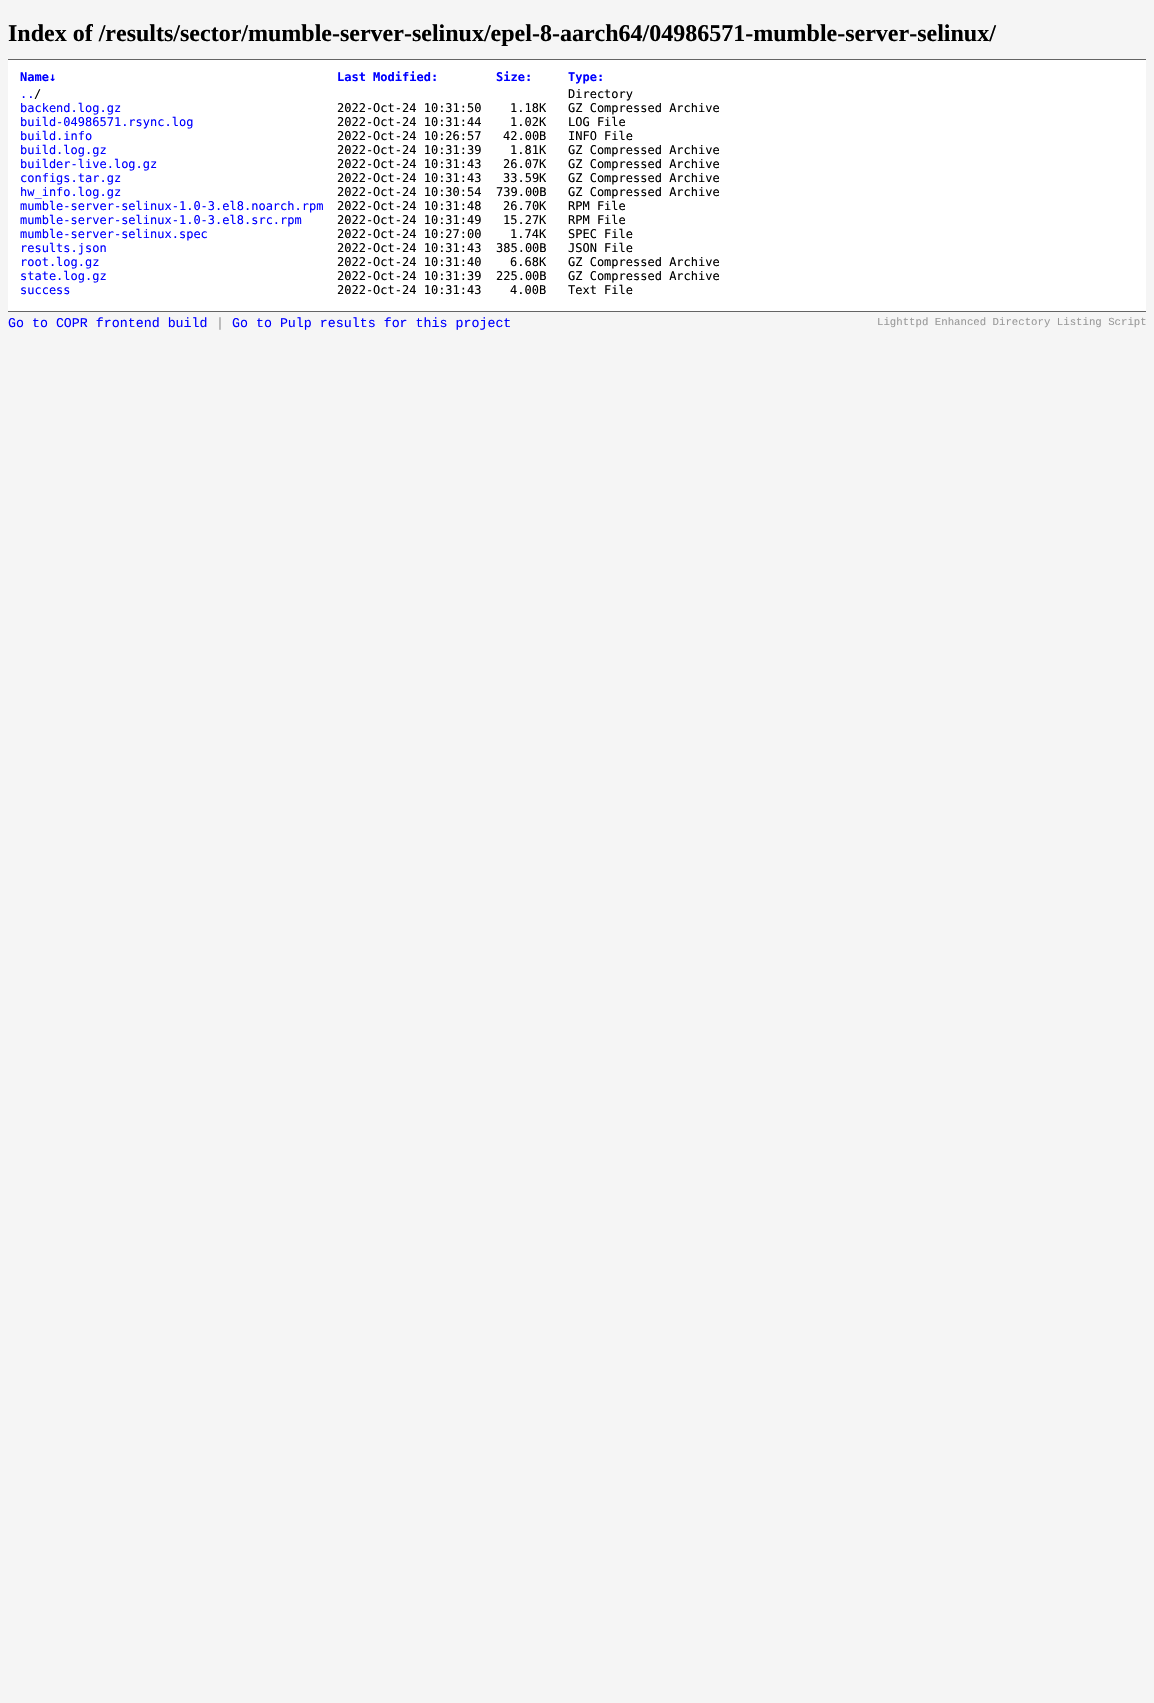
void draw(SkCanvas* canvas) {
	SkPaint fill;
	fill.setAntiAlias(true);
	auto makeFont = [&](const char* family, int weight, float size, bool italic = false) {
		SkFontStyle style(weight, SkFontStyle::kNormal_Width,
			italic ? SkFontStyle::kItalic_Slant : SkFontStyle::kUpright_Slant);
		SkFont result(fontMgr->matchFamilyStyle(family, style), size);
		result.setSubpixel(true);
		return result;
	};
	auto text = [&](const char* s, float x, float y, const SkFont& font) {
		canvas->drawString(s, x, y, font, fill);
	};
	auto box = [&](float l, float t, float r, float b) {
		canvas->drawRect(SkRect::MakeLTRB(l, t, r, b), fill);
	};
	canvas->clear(0xFFF5F5F5);
	fill.setColor(0xFFFFFFFF);
	box(8, 60, 1146, 311);
	fill.setColor(0xFF646464);
	box(8, 59, 1146, 60);
	box(8, 311, 1146, 312);
	auto font1 = makeFont("Liberation Serif", 700, 24);
	fill.setColor(0xFF000000);
	text("Index of /results/sector/mumble-server-selinux/epel-8-aarch64/04986571-mumble-server-selinux/", 8, 41, font1);
	auto font2 = makeFont("DejaVu Sans Mono", 700, 12);
	fill.setColor(0xFF0000FF);
	text("Name↓", 20, 81, font2);
	text("Last Modified:", 337, 81, font2);
	text("Size:", 496, 81, font2);
	text("Type:", 568, 81, font2);
	auto font3 = makeFont("DejaVu Sans Mono", 400, 12);
	text("..", 20, 98, font3);
	fill.setColor(0xFF000000);
	text("/", 34, 98, font3);
	text("Directory", 568, 98, font3);
	fill.setColor(0xFF0000FF);
	text("backend.log.gz", 20, 112, font3);
	fill.setColor(0xFF000000);
	text("2022-Oct-24 10:31:50", 337, 112, font3);
	text("1.18K", 510, 112, font3);
	text("GZ Compressed Archive", 568, 112, font3);
	fill.setColor(0xFF0000FF);
	text("build-04986571.rsync.log", 20, 126, font3);
	fill.setColor(0xFF000000);
	text("2022-Oct-24 10:31:44", 337, 126, font3);
	text("1.02K", 510, 126, font3);
	text("LOG File", 568, 126, font3);
	fill.setColor(0xFF0000FF);
	text("build.info", 20, 140, font3);
	fill.setColor(0xFF000000);
	text("2022-Oct-24 10:26:57", 337, 140, font3);
	text("42.00B", 503, 140, font3);
	text("INFO File", 568, 140, font3);
	fill.setColor(0xFF0000FF);
	text("build.log.gz", 20, 154, font3);
	fill.setColor(0xFF000000);
	text("2022-Oct-24 10:31:39", 337, 154, font3);
	text("1.81K", 510, 154, font3);
	text("GZ Compressed Archive", 568, 154, font3);
	fill.setColor(0xFF0000FF);
	text("builder-live.log.gz", 20, 168, font3);
	fill.setColor(0xFF000000);
	text("2022-Oct-24 10:31:43", 337, 168, font3);
	text("26.07K", 503, 168, font3);
	text("GZ Compressed Archive", 568, 168, font3);
	fill.setColor(0xFF0000FF);
	text("configs.tar.gz", 20, 182, font3);
	fill.setColor(0xFF000000);
	text("2022-Oct-24 10:31:43", 337, 182, font3);
	text("33.59K", 503, 182, font3);
	text("GZ Compressed Archive", 568, 182, font3);
	fill.setColor(0xFF0000FF);
	text("hw_info.log.gz", 20, 196, font3);
	fill.setColor(0xFF000000);
	text("2022-Oct-24 10:30:54", 337, 196, font3);
	text("739.00B", 496, 196, font3);
	text("GZ Compressed Archive", 568, 196, font3);
	fill.setColor(0xFF0000FF);
	text("mumble-server-selinux-1.0-3.el8.noarch.rpm", 20, 210, font3);
	fill.setColor(0xFF000000);
	text("2022-Oct-24 10:31:48", 337, 210, font3);
	text("26.70K", 503, 210, font3);
	text("RPM File", 568, 210, font3);
	fill.setColor(0xFF0000FF);
	text("mumble-server-selinux-1.0-3.el8.src.rpm", 20, 224, font3);
	fill.setColor(0xFF000000);
	text("2022-Oct-24 10:31:49", 337, 224, font3);
	text("15.27K", 503, 224, font3);
	text("RPM File", 568, 224, font3);
	fill.setColor(0xFF0000FF);
	text("mumble-server-selinux.spec", 20, 238, font3);
	fill.setColor(0xFF000000);
	text("2022-Oct-24 10:27:00", 337, 238, font3);
	text("1.74K", 510, 238, font3);
	text("SPEC File", 568, 238, font3);
	fill.setColor(0xFF0000FF);
	text("results.json", 20, 252, font3);
	fill.setColor(0xFF000000);
	text("2022-Oct-24 10:31:43", 337, 252, font3);
	text("385.00B", 496, 252, font3);
	text("JSON File", 568, 252, font3);
	fill.setColor(0xFF0000FF);
	text("root.log.gz", 20, 266, font3);
	fill.setColor(0xFF000000);
	text("2022-Oct-24 10:31:40", 337, 266, font3);
	text("6.68K", 510, 266, font3);
	text("GZ Compressed Archive", 568, 266, font3);
	fill.setColor(0xFF0000FF);
	text("state.log.gz", 20, 280, font3);
	fill.setColor(0xFF000000);
	text("2022-Oct-24 10:31:39", 337, 280, font3);
	text("225.00B", 496, 280, font3);
	text("GZ Compressed Archive", 568, 280, font3);
	fill.setColor(0xFF0000FF);
	text("success", 20, 294, font3);
	fill.setColor(0xFF000000);
	text("2022-Oct-24 10:31:43", 337, 294, font3);
	text("4.00B", 510, 294, font3);
	text("Text File", 568, 294, font3);
	auto font4 = makeFont("Liberation Mono", 400, 13.3f);
	fill.setColor(0xFF0000FF);
	text("Go to COPR frontend build", 8, 327, font4);
	fill.setColor(0xFF999999);
	text("|", 216, 327, font4);
	fill.setColor(0xFF0000FF);
	text("Go to Pulp results for this project", 232, 327, font4);
	auto font5 = makeFont("Liberation Mono", 400, 10.7f);
	fill.setColor(0xFF999999);
	text("Lighttpd Enhanced Directory Listing Script", 877, 325, font5);
}
